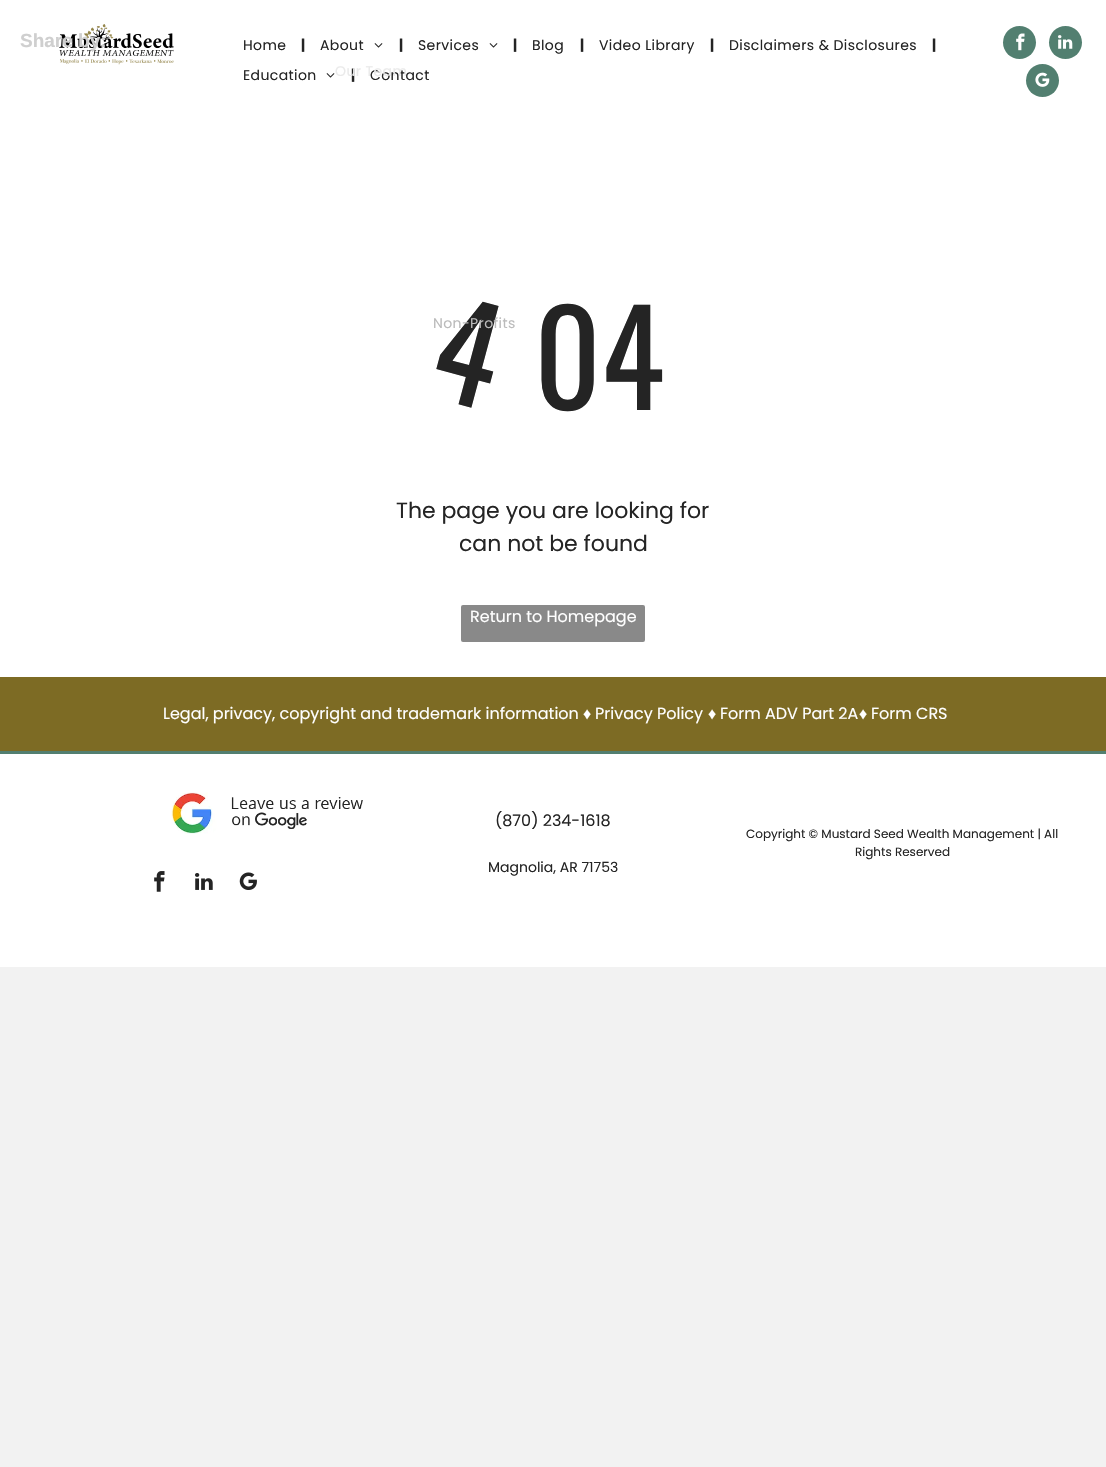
void draw(SkCanvas* canvas) {
	SkPaint fill;
	fill.setAntiAlias(true);
	auto makeFont = [&](const char* family, int weight, float size, bool italic = false) {
		SkFontStyle style(weight, SkFontStyle::kNormal_Width,
			italic ? SkFontStyle::kItalic_Slant : SkFontStyle::kUpright_Slant);
		SkFont result(fontMgr->matchFamilyStyle(family, style), size);
		result.setSubpixel(true);
		return result;
	};
	auto text = [&](const char* s, float x, float y, const SkFont& font) {
		canvas->drawString(s, x, y, font, fill);
	};
	auto spacedText = [&](const char* s, float x, float y, const SkFont& font, const SkPaint& ink, float letter, float word) {
		std::vector<SkGlyphID> glyphs(font.countText(s, strlen(s), SkTextEncoding::kUTF8));
		std::vector<float> xs(glyphs.size());
		font.textToGlyphs(s, strlen(s), SkTextEncoding::kUTF8, glyphs);
		font.getXPos(glyphs, xs, x);
		float extra = 0;
		for (size_t i = 0; i < glyphs.size(); i++) {
			xs[i] += extra;
			extra += letter + word * (glyphs[i] == font.unicharToGlyph(' '));
		}
		canvas->drawTextBlob(SkTextBlob::MakeFromPosHGlyphs(glyphs, xs, y, font), 0, 0, ink);
	};
	auto box = [&](float l, float t, float r, float b) {
		canvas->drawRect(SkRect::MakeLTRB(l, t, r, b), fill);
	};
	auto roundBox = [&](float l, float t, float r, float b, float radius) {
		canvas->drawRoundRect(SkRect::MakeLTRB(l, t, r, b), radius, radius, fill);
	};
	auto picture = [&](const char* path, float l, float t, float r, float b) {
		auto image = SkImages::DeferredFromEncodedData(SkData::MakeFromFileName(path));
		canvas->drawImageRect(image, SkRect::MakeLTRB(l, t, r, b), SkSamplingOptions());
	};
	canvas->clear(0xFFF2F2F2);
	fill.setColor(0xFFFFFFFF);
	box(0, 0, 1106, 677);
	picture("image0.png", 59, 24, 174, 65);
	picture("image1.png", 374, 43, 383, 48);
	picture("image1.png", 489, 43, 498, 48);
	picture("image1.png", 326, 73, 335, 78);
	fill.setColor(0xFF527F70);
	canvas->drawCircle(1019.5f, 42.5f, 16.5f, fill);
	picture("image2.png", 1016, 33, 1025, 51);
	canvas->drawCircle(1065.5f, 42.5f, 16.5f, fill);
	picture("image3.png", 1058, 35, 1073, 49);
	canvas->drawCircle(1042.5f, 80.5f, 16.5f, fill);
	picture("image4.png", 1035, 72, 1050, 87);
	fill.setColor(0xFF898989);
	roundBox(461, 605, 645, 642, 2);
	fill.setColor(0xFFFFFFFF);
	box(0, 754, 1106, 967);
	fill.setColor(0xFF7D6B24);
	box(0, 677, 1106, 751);
	fill.setColor(0xFF527F70);
	box(0, 751, 1106, 754);
	picture("image5.png", 171, 792, 363, 834);
	picture("image6.png", 154, 871, 165, 892);
	picture("image7.png", 195, 873, 213, 890);
	picture("image8.png", 239, 872, 257, 890);
	auto font1 = makeFont("Liberation Sans", 700, 19);
	fill.setColor(0xFFCFCFCF);
	text("Share by:", 20, 47, font1);
	auto font2 = makeFont("Poppins", 400, 14);
	fill.setColor(0xFF242424);
	spacedText("Home", 243, 50, font2, fill, 0.4f, 0);
	auto font3 = makeFont("Poppins", 700, 14);
	text("|", 301, 50, font3);
	spacedText("About", 320, 50, font2, fill, 0.4f, 0);
	text("|", 399, 50, font3);
	spacedText("Services", 418, 50, font2, fill, 0.4f, 0);
	text("|", 513, 50, font3);
	spacedText("Blog", 532, 50, font2, fill, 0.4f, 0);
	text("|", 580, 50, font3);
	spacedText("Video Library", 599, 50, font2, fill, 0.4f, 0);
	text("|", 710, 50, font3);
	spacedText("Disclaimers & Disclosures", 729, 50, font2, fill, 0.4f, 0);
	text("|", 932, 50, font3);
	spacedText("Education", 243, 80, font2, fill, 0.4f, 0);
	text("|", 351, 80, font3);
	spacedText("Contact", 370, 80, font2, fill, 0.4f, 0);
	fill.setColor(0xFFEAEAEA);
	spacedText("Our Team", 335, 76, font2, fill, 0.4f, 0);
	auto font4 = makeFont("Oswald", 400, 130);
	fill.setColor(0xFF242424);
	canvas->save();
	canvas->rotate(15, 424, 395);
	text("4", 424, 395, font4);
	canvas->restore();
	fill.setColor(0xFFBBBBBB);
	spacedText("Non-Profits", 433, 328, font2, fill, 0.4f, 0);
	fill.setColor(0xFF242424);
	text("04", 534, 410, font4);
	auto font5 = makeFont("Poppins", 400, 22);
	text("The page you are looking for", 396, 518, font5);
	text("can not be found", 459, 551, font5);
	auto font6 = makeFont("Poppins", 400, 16);
	fill.setColor(0xFFFFFFFF);
	text("Return to Homepage", 470, 622, font6);
	text("Legal, privacy, copyright and trademark information", 163, 719, font6);
	auto font7 = makeFont("Liberation Serif", 400, 16);
	text("♦", 583, 719, font7);
	text("Privacy Policy", 595, 719, font6);
	text("♦", 708, 719, font7);
	text("Form ADV Part 2A", 720, 719, font6);
	text("♦", 859, 719, font7);
	text("Form CRS", 871, 719, font6);
	fill.setColor(0xFF242424);
	text("(870) 234-1618", 495, 826, font6);
	text("Magnolia, AR 71753", 488, 872, font2);
	auto font8 = makeFont("Poppins", 400, 12);
	text("Copyright © Mustard Seed Wealth Management | All", 746, 838, font8);
	text("Rights Reserved", 855, 856, font8);
}
